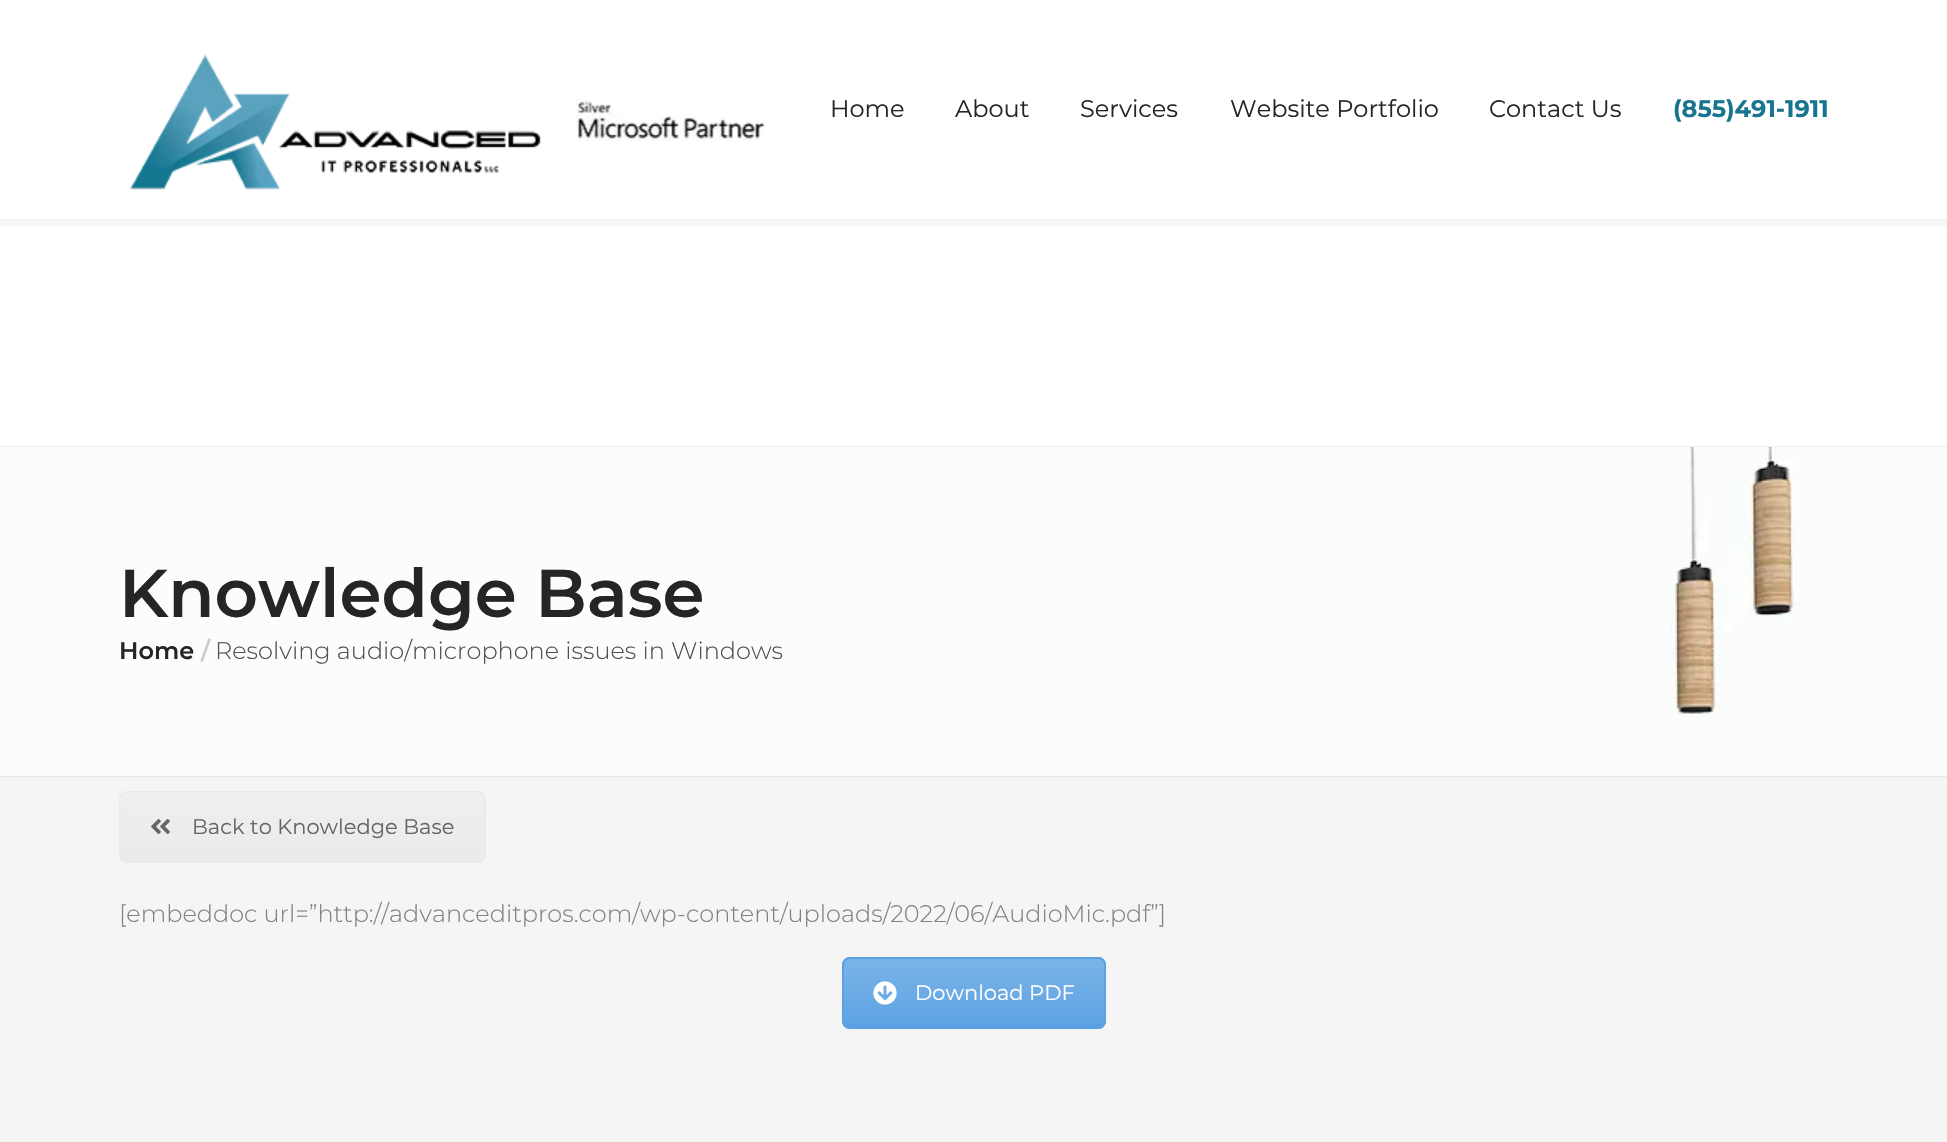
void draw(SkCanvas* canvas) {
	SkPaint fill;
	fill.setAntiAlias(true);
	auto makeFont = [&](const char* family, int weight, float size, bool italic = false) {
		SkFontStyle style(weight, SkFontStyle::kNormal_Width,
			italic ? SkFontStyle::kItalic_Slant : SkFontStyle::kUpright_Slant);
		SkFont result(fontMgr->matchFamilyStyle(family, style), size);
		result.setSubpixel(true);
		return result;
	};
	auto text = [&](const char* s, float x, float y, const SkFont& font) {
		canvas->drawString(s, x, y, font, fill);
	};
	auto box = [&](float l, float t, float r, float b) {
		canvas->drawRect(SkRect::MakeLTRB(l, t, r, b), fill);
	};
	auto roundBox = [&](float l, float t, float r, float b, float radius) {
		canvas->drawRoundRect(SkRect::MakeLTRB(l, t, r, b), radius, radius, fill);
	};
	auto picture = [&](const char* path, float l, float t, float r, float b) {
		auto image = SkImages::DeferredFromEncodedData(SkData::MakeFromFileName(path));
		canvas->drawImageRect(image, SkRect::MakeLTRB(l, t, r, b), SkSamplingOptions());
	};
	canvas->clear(0xFFFFFFFF);
	canvas->save();
	canvas->clipRect(SkRect::MakeLTRB(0, 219, 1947, 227));
	fill.setColor(0x0F000000);
	fill.setMaskFilter(SkMaskFilter::MakeBlur(kNormal_SkBlurStyle, 6));
	canvas->drawRect(SkRect::MakeLTRB(-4, -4, 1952, 224), fill);
	fill.setMaskFilter(nullptr);
	canvas->restore();
	picture("image0.png", 130, 54, 541, 190);
	picture("image1.png", 576, 99, 768, 141);
	fill.setColor(0xFFF5F5F5);
	box(0, 776, 1947, 1142);
	fill.setStyle(SkPaint::kStroke_Style);
	fill.setStrokeWidth(2);
	fill.setColor(0x0F000000);
	canvas->drawRect(SkRect::MakeLTRB(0, 447, 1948, 776), fill);
	fill.setStyle(SkPaint::kFill_Style);
	fill.setColor(0xFFFBFDFC);
	box(0, 447, 1947, 776);
	picture("image2.png", 1670, 447, 1797, 717);
	fill.setColor(0xFFEBEBEB);
	roundBox(119, 791, 486, 863, 8);
	canvas->save();
	canvas->clipPath(SkPathBuilder().moveTo(127, 791).lineTo(478, 791).cubicTo(482.5f, 791, 486, 794.5f, 486, 799).lineTo(486, 855).cubicTo(486, 859.5f, 482.5f, 863, 478, 863).lineTo(127, 863).cubicTo(122.5f, 863, 119, 859.5f, 119, 855).lineTo(119, 799).cubicTo(119, 794.5f, 122.5f, 791, 127, 791).close().detach(), true);
	{
		const SkColor colors[] = {0x33FFFFFF, 0x03FFFFFF};
		const float stops[] = {0, 1};
		const SkPoint ends[] = {{302, 792}, {302, 861}};
		fill.setShader(SkGradientShader::MakeLinear(ends, colors, stops, 2, SkTileMode::kClamp));
		fill.setAlpha(255);
	}
	box(119, 792, 486, 857);
	canvas->restore();
	fill.setStyle(SkPaint::kStroke_Style);
	fill.setShader(nullptr);
	fill.setColor(0xFFEBEBEB);
	canvas->drawRoundRect(SkRect::MakeLTRB(120, 792, 485, 862), 7, 7, fill);
	picture("image3.png", 151, 819, 170, 834);
	fill.setStyle(SkPaint::kFill_Style);
	fill.setColor(0xFF5AA1E3);
	roundBox(842, 957, 1106, 1029, 8);
	canvas->save();
	canvas->clipPath(SkPathBuilder().moveTo(850, 957).lineTo(1098, 957).cubicTo(1102.5f, 957, 1106, 960.5f, 1106, 965).lineTo(1106, 1021).cubicTo(1106, 1025.5f, 1102.5f, 1029, 1098, 1029).lineTo(850, 1029).cubicTo(845.5f, 1029, 842, 1025.5f, 842, 1021).lineTo(842, 965).cubicTo(842, 960.5f, 845.5f, 957, 850, 957).close().detach(), true);
	{
		const SkColor colors[] = {0x33FFFFFF, 0x03FFFFFF};
		const float stops[] = {0, 1};
		const SkPoint ends[] = {{974, 959}, {974, 1028}};
		fill.setShader(SkGradientShader::MakeLinear(ends, colors, stops, 2, SkTileMode::kClamp));
		fill.setAlpha(255);
	}
	box(842, 959, 1106, 1024);
	canvas->restore();
	fill.setStyle(SkPaint::kStroke_Style);
	fill.setShader(nullptr);
	fill.setColor(0xFF5AA1E3);
	canvas->drawRoundRect(SkRect::MakeLTRB(843, 958, 1105, 1028), 7, 7, fill);
	picture("image4.png", 873, 981, 897, 1005);
	auto font1 = makeFont("Montserrat", 400, 24);
	fill.setStyle(SkPaint::kFill_Style);
	fill.setColor(0xFF252525);
	text("Home", 830, 117, font1);
	text("About", 955, 117, font1);
	text("Services", 1080, 117, font1);
	text("Website Portfolio", 1230, 117, font1);
	text("Contact Us", 1489, 117, font1);
	auto font2 = makeFont("Montserrat", 700, 24);
	fill.setColor(0xFF18758F);
	text("(855)491-1911", 1673, 117, font2);
	auto font3 = makeFont("Montserrat", 600, 67.5f);
	fill.setColor(0xFF252525);
	text("Knowledge Base", 119, 617, font3);
	auto font4 = makeFont("Montserrat", 600, 24);
	text("Home", 119, 659, font4);
	fill.setColor(0xFFCCCCCC);
	text("/", 201, 659, font4);
	auto font5 = makeFont("Montserrat", 300, 24);
	fill.setColor(0xFF505050);
	text("Resolving audio/microphone issues in Windows", 215, 659, font5);
	auto font6 = makeFont("Montserrat", 400, 21);
	fill.setColor(0xFF666666);
	text("Back to Knowledge Base", 192, 834, font6);
	fill.setColor(0xFF828282);
	text("[embeddoc url=”http://advanceditpros.com/wp-content/uploads/2022/06/AudioMic.pdf”]", 119, 922, font5);
	fill.setColor(0xFFFFFFFF);
	text("Download PDF", 915, 1000, font6);
}
